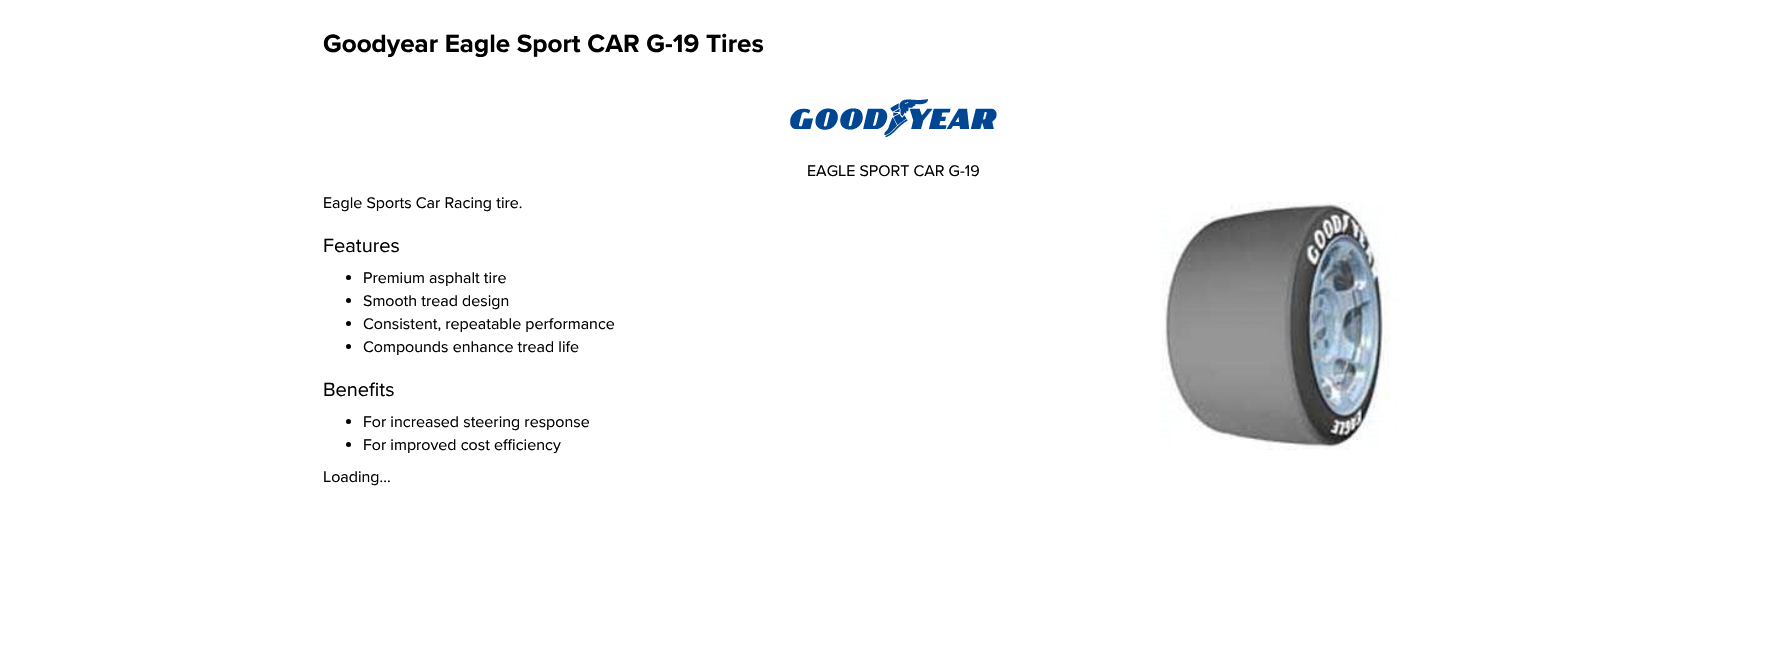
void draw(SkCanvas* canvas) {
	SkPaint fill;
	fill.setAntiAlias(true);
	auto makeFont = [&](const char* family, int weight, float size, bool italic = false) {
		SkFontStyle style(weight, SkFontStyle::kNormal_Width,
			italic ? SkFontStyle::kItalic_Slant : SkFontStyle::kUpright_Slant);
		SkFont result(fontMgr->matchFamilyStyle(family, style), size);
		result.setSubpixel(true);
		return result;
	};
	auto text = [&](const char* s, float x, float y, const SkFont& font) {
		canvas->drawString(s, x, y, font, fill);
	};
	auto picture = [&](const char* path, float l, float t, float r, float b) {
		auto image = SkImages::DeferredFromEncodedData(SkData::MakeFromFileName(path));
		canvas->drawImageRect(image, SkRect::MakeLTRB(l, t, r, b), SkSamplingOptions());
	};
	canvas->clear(0xFFFFFFFF);
	picture("image0.png", 790, 99, 997, 137);
	fill.setColor(0xFF000000);
	canvas->drawCircle(348.5f, 277.5f, 2.5f, fill);
	canvas->drawCircle(348.5f, 300.5f, 2.5f, fill);
	canvas->drawCircle(348.5f, 323.5f, 2.5f, fill);
	canvas->drawCircle(348.5f, 346.5f, 2.5f, fill);
	canvas->drawCircle(348.5f, 421.5f, 2.5f, fill);
	canvas->drawCircle(348.5f, 444.5f, 2.5f, fill);
	picture("image1.png", 1160, 202, 1399, 450);
	auto font1 = makeFont("Proxima Nova", 700, 26);
	text("Goodyear Eagle Sport CAR G-19 Tires", 323, 52, font1);
	auto font2 = makeFont("Proxima Nova", 400, 16);
	text("EAGLE SPORT CAR G-19", 807, 176, font2);
	text("Eagle Sports Car Racing tire.", 323, 208, font2);
	auto font3 = makeFont("Proxima Nova", 400, 20);
	text("Features", 323, 252, font3);
	text("Premium asphalt tire", 363, 283, font2);
	text("Smooth tread design", 363, 306, font2);
	text("Consistent, repeatable performance", 363, 329, font2);
	text("Compounds enhance tread life", 363, 352, font2);
	text("Benefits", 323, 396, font3);
	text("For increased steering response", 363, 427, font2);
	text("For improved cost efficiency", 363, 450, font2);
	text("Loading...", 323, 482, font2);
}
